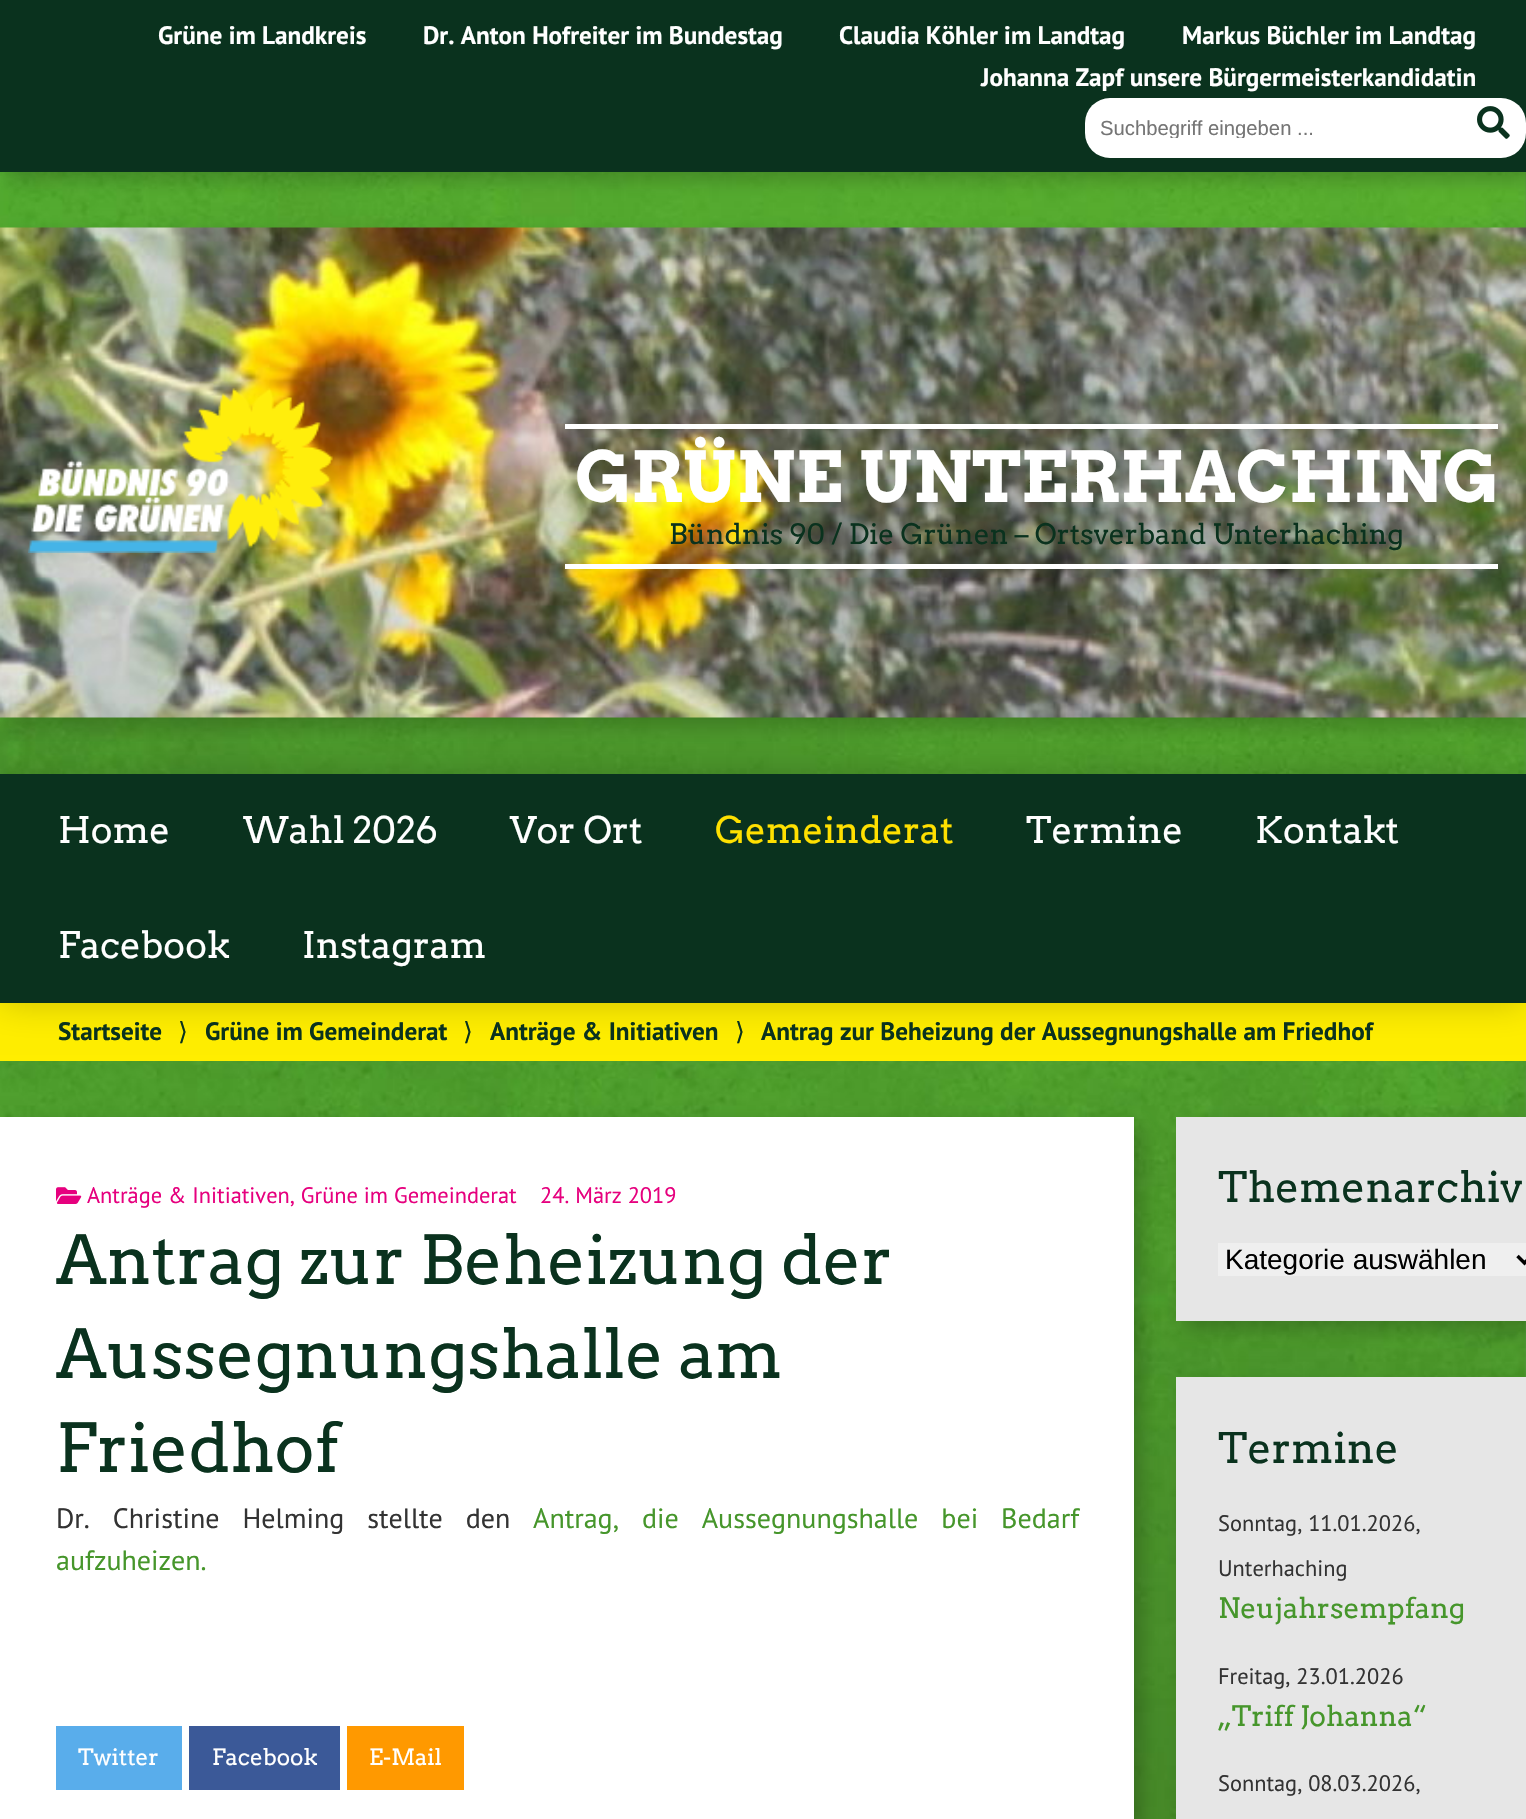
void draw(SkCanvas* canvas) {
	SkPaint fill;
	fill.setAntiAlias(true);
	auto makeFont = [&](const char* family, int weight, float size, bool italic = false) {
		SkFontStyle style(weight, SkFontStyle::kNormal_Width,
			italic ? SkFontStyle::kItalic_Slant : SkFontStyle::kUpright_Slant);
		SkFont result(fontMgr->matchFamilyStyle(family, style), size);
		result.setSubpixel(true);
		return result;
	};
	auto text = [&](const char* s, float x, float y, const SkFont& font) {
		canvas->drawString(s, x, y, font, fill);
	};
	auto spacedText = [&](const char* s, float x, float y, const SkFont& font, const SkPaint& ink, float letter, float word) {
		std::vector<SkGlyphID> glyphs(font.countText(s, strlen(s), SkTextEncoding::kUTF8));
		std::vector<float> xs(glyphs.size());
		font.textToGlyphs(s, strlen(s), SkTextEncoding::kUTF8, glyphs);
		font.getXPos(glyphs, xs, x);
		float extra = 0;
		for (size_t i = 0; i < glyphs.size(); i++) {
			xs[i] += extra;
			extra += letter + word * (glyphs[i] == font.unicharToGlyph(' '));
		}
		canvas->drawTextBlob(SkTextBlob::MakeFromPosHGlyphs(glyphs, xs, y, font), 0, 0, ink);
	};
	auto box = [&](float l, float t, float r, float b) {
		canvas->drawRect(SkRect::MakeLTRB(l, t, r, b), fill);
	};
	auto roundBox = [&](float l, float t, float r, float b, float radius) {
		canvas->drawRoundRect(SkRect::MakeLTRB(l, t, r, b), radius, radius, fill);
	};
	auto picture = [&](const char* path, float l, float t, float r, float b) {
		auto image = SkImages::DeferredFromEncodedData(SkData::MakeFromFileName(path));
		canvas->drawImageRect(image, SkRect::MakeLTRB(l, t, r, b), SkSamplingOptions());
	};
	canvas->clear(0xFF559448);
	picture("image0.png", 0, 172, 1526, 1819);
	fill.setColor(0x33000000);
	fill.setMaskFilter(SkMaskFilter::MakeBlur(kNormal_SkBlurStyle, 9));
	canvas->drawRect(SkRect::MakeLTRB(9, 9, 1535, 180), fill);
	fill.setMaskFilter(nullptr);
	fill.setColor(0xFF0A321E);
	box(0, 0, 1526, 172);
	fill.setColor(0xFFFFFFFF);
	roundBox(1085, 98, 1526, 158, 25);
	picture("image1.png", 1477, 106, 1510, 139);
	fill.setColor(0x33000000);
	fill.setMaskFilter(SkMaskFilter::MakeBlur(kNormal_SkBlurStyle, 9));
	canvas->drawRect(SkRect::MakeLTRB(9, 236, 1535, 726), fill);
	fill.setMaskFilter(nullptr);
	picture("image2.png", 0, 227, 1526, 718);
	picture("image3.png", 28, 388, 333, 553);
	fill.setColor(0xFFFFFFFF);
	box(565, 424, 1498, 429);
	box(565, 564, 1498, 569);
	fill.setColor(0xFFFFEE00);
	box(0, 1003, 1526, 1061);
	fill.setColor(0x33000000);
	fill.setMaskFilter(SkMaskFilter::MakeBlur(kNormal_SkBlurStyle, 17.5f));
	canvas->drawRect(SkRect::MakeLTRB(0, 774, 1526, 1003), fill);
	fill.setMaskFilter(nullptr);
	fill.setColor(0xFF0A321E);
	box(0, 774, 1526, 1003);
	fill.setColor(0x33000000);
	fill.setMaskFilter(SkMaskFilter::MakeBlur(kNormal_SkBlurStyle, 9));
	canvas->drawRect(SkRect::MakeLTRB(9, 1125, 1143, 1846), fill);
	fill.setMaskFilter(nullptr);
	fill.setColor(0xFFFFFFFF);
	box(0, 1117, 1134, 1819);
	picture("image4.png", 56, 1187, 82, 1204);
	fill.setColor(0xFF59ADEB);
	box(56, 1726, 182, 1790);
	fill.setColor(0xFF3B5998);
	box(189, 1726, 340, 1790);
	fill.setColor(0xFFFF9900);
	box(347, 1726, 464, 1790);
	fill.setColor(0x33000000);
	fill.setMaskFilter(SkMaskFilter::MakeBlur(kNormal_SkBlurStyle, 9));
	canvas->drawRect(SkRect::MakeLTRB(1185, 1125, 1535, 1330), fill);
	fill.setMaskFilter(nullptr);
	fill.setColor(0xFFE6E6E6);
	box(1176, 1117, 1526, 1321);
	fill.setColor(0xFFEFEFEF);
	box(1218, 1243, 1526, 1276);
	fill.setStyle(SkPaint::kStroke_Style);
	fill.setStrokeWidth(3.5f);
	fill.setColor(0xFF000000);
	canvas->drawPath(SkPathBuilder().moveTo(1517.5f, 1256).lineTo(1524.5f, 1263).lineTo(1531.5f, 1256).detach(), fill);
	fill.setStyle(SkPaint::kFill_Style);
	fill.setColor(0x33000000);
	fill.setMaskFilter(SkMaskFilter::MakeBlur(kNormal_SkBlurStyle, 9));
	canvas->drawRect(SkRect::MakeLTRB(1185, 1386, 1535, 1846), fill);
	fill.setMaskFilter(nullptr);
	fill.setColor(0xFFE6E6E6);
	box(1176, 1377, 1526, 1819);
	auto font1 = makeFont("PT Sans", 700, 25.2f);
	fill.setColor(0xFFFFFFFF);
	text("Grüne im Landkreis", 158, 44, font1);
	text("Dr. Anton Hofreiter im Bundestag", 423, 44, font1);
	text("Claudia Köhler im Landtag", 839, 44, font1);
	text("Markus Büchler im Landtag", 1182, 44, font1);
	text("Johanna Zapf unsere Bürgermeisterkandidatin", 981, 86, font1);
	canvas->save();
	canvas->clipRect(SkRect::MakeLTRB(1101, 117, 1451, 138));
	auto font2 = makeFont("Liberation Sans", 400, 20.25f);
	fill.setColor(0xFF757575);
	text("Suchbegriff eingeben ...", 1100, 135, font2);
	canvas->restore();
	auto font3 = makeFont("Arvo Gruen", 400, 70);
	fill.setColor(0xFFFFFFFF);
	text("GRÜNE UNTERHACHING", 575, 502, font3);
	auto font4 = makeFont("Arvo", 400, 28);
	fill.setColor(0xFF0A321E);
	text("Bündnis 90 / Die Grünen – Ortsverband Unterhaching", 669, 544, font4);
	auto font5 = makeFont("Arvo", 400, 36.5f);
	fill.setColor(0xFFFFFFFF);
	text("Home", 58, 843, font5);
	text("Wahl 2026", 243, 843, font5);
	text("Vor Ort", 510, 843, font5);
	fill.setColor(0xFFFFE000);
	text("Gemeinderat", 715, 843, font5);
	fill.setColor(0xFFFFFFFF);
	text("Termine", 1026, 843, font5);
	text("Kontakt", 1255, 843, font5);
	text("Facebook", 58, 958, font5);
	text("Instagram", 302, 958, font5);
	fill.setColor(0xFF0A321E);
	text("Startseite", 58, 1040, font1);
	auto font6 = makeFont("DejaVu Sans", 400, 25.2f);
	text("⟩", 178, 1040, font6);
	text("Grüne im Gemeinderat", 205, 1040, font1);
	text("⟩", 463, 1040, font6);
	text("Anträge & Initiativen", 490, 1040, font1);
	text("⟩", 735, 1040, font6);
	text("Antrag zur Beheizung der Aussegnungshalle am Friedhof", 761, 1040, font1);
	auto font7 = makeFont("PT Sans", 400, 22.4f);
	fill.setColor(0xFFE6007E);
	text("Anträge & Initiativen, Grüne im Gemeinderat", 87, 1203, font7);
	text("24. März 2019", 540, 1203, font7);
	auto font8 = makeFont("Arvo", 400, 67.25f);
	fill.setColor(0xFF0A321E);
	text("Antrag zur Beheizung der", 56, 1284, font8);
	text("Aussegnungshalle am", 56, 1378, font8);
	text("Friedhof", 56, 1472, font8);
	auto font9 = makeFont("PT Sans", 400, 28);
	fill.setColor(0xFF333333);
	spacedText("Dr. Christine Helming stellte den", 56, 1528, font9, fill, 0, 15.5f);
	fill.setColor(0xFF46962B);
	spacedText("Antrag, die Aussegnungshalle bei Bedarf", 533, 1528, font9, fill, 0, 15.5f);
	text("aufzuheizen.", 56, 1570, font9);
	auto font10 = makeFont("Arvo", 400, 22.4f);
	fill.setColor(0xFFFFFFFF);
	text("Twitter", 78, 1765, font10);
	text("Facebook", 212, 1765, font10);
	text("E-Mail", 369, 1765, font10);
	auto font11 = makeFont("Arvo", 400, 42);
	fill.setColor(0xFF0A321E);
	text("Themenarchiv", 1218, 1202, font11);
	auto font12 = makeFont("Liberation Sans", 400, 28);
	fill.setColor(0xFF000000);
	text("Kategorie auswählen", 1225, 1269, font12);
	fill.setColor(0xFF0A321E);
	text("Termine", 1218, 1463, font11);
	fill.setColor(0xFF333333);
	text("Sonntag, 11.01.2026,", 1218, 1531, font7);
	text("Unterhaching", 1218, 1576, font7);
	fill.setColor(0xFF46962B);
	text("Neujahrsempfang", 1218, 1618, font4);
	fill.setColor(0xFF333333);
	text("Freitag, 23.01.2026", 1218, 1684, font7);
	fill.setColor(0xFF46962B);
	text("„Triff Johanna“", 1218, 1726, font4);
	fill.setColor(0xFF333333);
	text("Sonntag, 08.03.2026,", 1218, 1791, font7);
}
